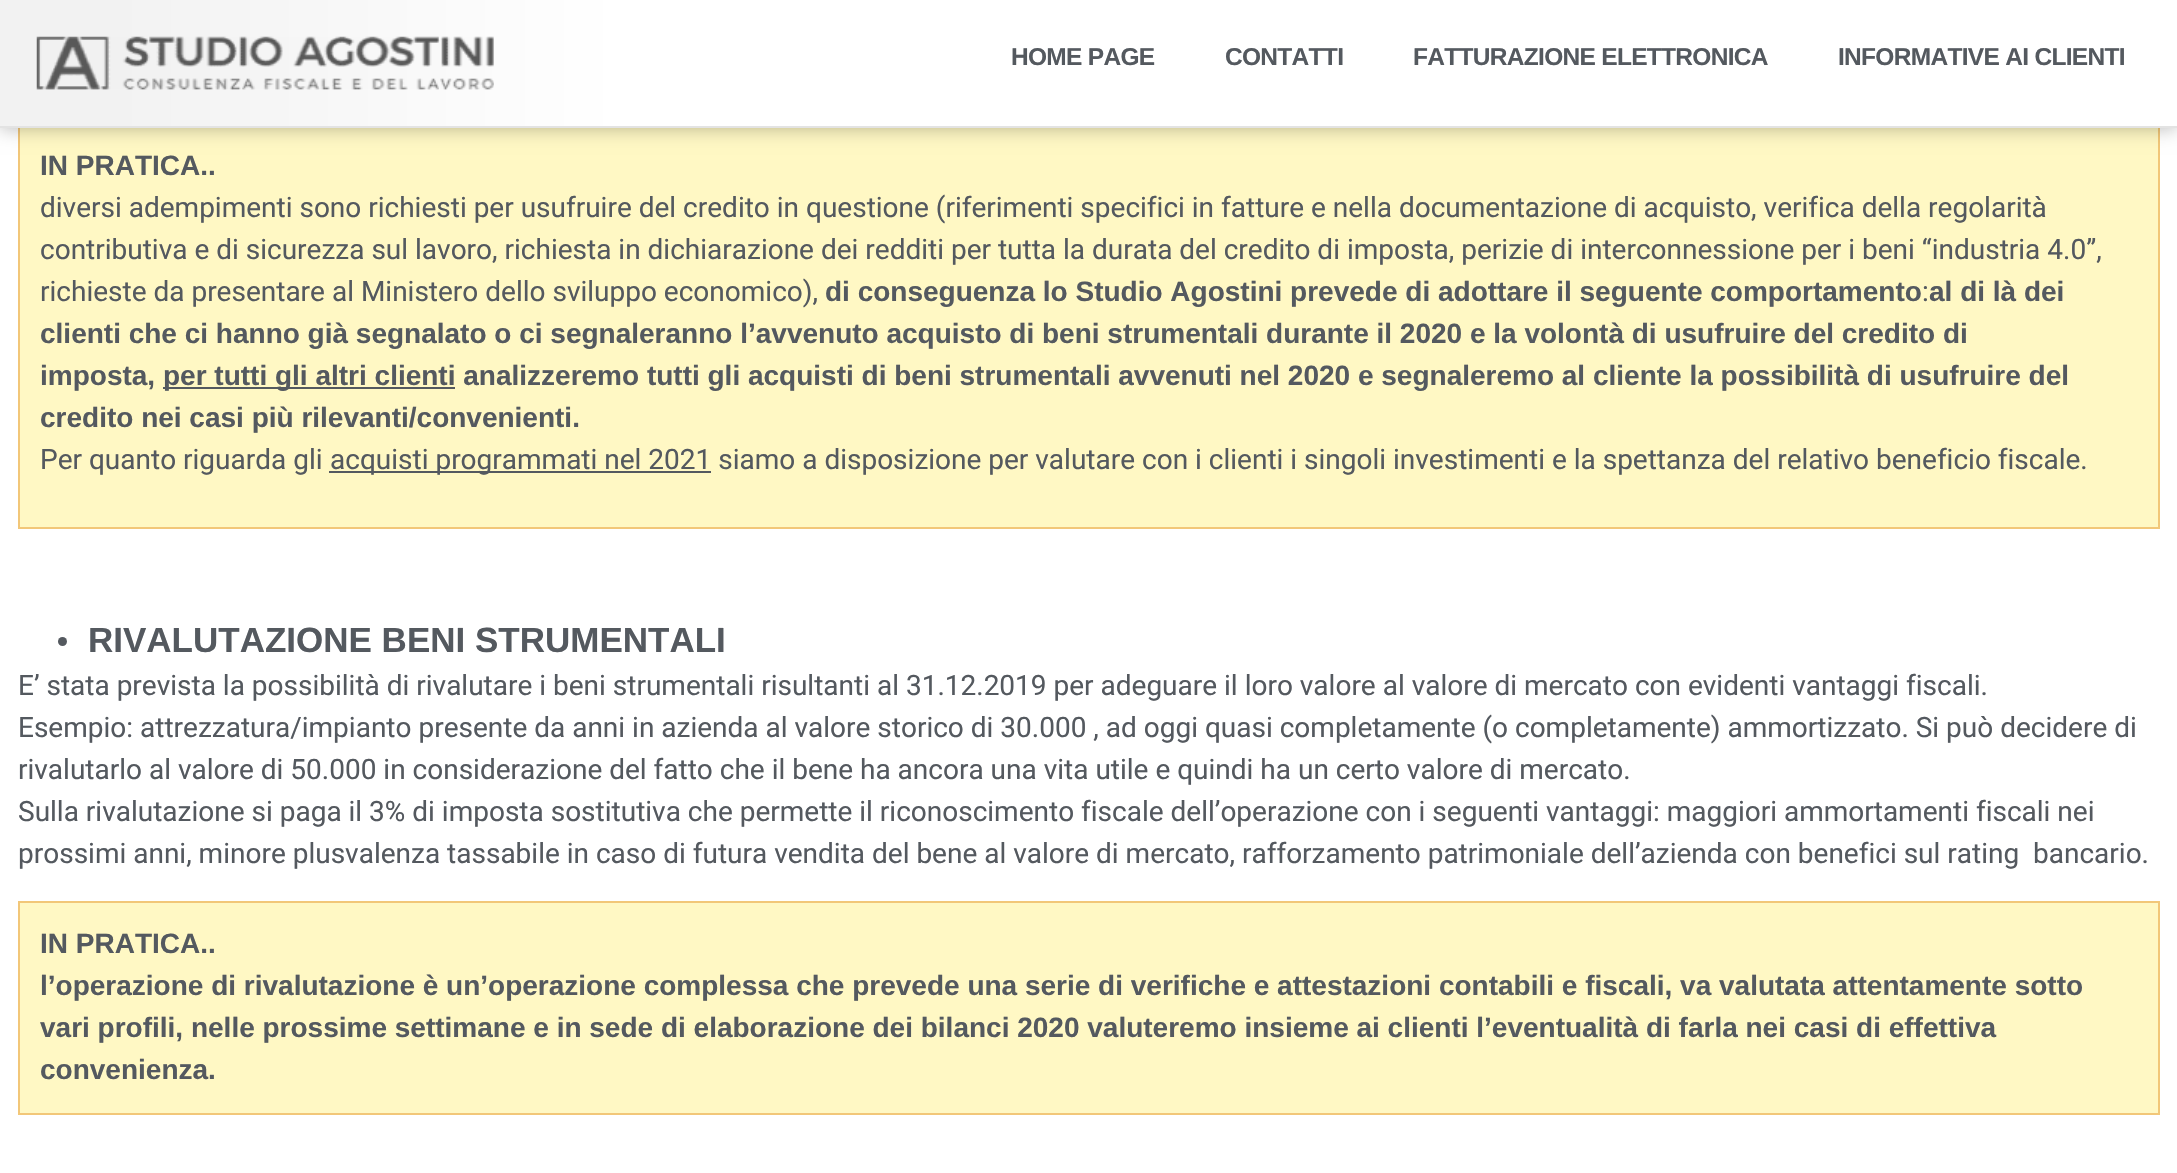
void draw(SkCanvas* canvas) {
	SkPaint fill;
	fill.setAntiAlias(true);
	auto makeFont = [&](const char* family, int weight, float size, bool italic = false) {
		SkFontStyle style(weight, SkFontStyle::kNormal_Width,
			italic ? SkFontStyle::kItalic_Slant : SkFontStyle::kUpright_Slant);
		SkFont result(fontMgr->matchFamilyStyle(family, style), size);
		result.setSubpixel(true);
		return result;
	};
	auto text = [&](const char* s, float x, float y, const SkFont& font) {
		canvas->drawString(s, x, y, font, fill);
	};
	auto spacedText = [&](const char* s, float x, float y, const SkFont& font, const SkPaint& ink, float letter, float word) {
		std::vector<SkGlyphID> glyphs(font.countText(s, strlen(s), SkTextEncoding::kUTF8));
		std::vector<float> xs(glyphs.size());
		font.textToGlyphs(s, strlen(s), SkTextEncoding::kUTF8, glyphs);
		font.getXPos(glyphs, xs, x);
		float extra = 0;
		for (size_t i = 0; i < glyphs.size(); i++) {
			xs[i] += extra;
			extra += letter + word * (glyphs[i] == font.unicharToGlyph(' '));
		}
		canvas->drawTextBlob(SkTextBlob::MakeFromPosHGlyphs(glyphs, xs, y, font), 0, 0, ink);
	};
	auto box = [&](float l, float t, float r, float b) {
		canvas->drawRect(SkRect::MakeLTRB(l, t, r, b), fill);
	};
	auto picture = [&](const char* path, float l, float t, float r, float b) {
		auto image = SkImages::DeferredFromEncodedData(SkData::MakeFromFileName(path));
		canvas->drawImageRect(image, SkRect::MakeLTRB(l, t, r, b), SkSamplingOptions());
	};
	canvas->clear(0xFFFFFFFF);
	fill.setColor(0xFFFFF8C4);
	box(20, 128, 2158, 527);
	fill.setStyle(SkPaint::kStroke_Style);
	fill.setStrokeWidth(2);
	fill.setColor(0xFFF2C779);
	canvas->drawRect(SkRect::MakeLTRB(19, 124, 2159, 528), fill);
	fill.setStyle(SkPaint::kFill_Style);
	fill.setColor(0x4A000000);
	fill.setMaskFilter(SkMaskFilter::MakeBlur(kNormal_SkBlurStyle, 9));
	canvas->drawRect(SkRect::MakeLTRB(0, 0, 2177, 128), fill);
	fill.setMaskFilter(nullptr);
	fill.setColor(0xFFFFFFFF);
	box(623, 0, 2177, 126);
	fill.setColor(0xFFE3E3E3);
	box(0, 126, 2177, 128);
	{
		const SkColor colors[] = {0xFFFFFFFF, 0xFFF2F2F2};
		const float stops[] = {0, 0.82f};
		const SkPoint ends[] = {{623, 63}, {0, 63}};
		fill.setShader(SkGradientShader::MakeLinear(ends, colors, stops, 2, SkTileMode::kClamp));
		fill.setAlpha(255);
	}
	box(0, 0, 623, 126);
	picture("image0.png", 36, 36, 494, 90);
	fill.setShader(nullptr);
	fill.setColor(0xFF54595F);
	box(163, 387, 455, 389);
	box(329, 471, 711, 473);
	canvas->drawCircle(62.5f, 641.5f, 4.5f, fill);
	fill.setColor(0xFFFFF8C4);
	canvas->drawRect(SkRect::MakeLTRB(19, 902, 2159, 1114), fill);
	fill.setStyle(SkPaint::kStroke_Style);
	fill.setColor(0xFFF2C779);
	canvas->drawRect(SkRect::MakeLTRB(19, 902, 2159, 1114), fill);
	auto font1 = makeFont("Liberation Sans", 700, 24.5f);
	fill.setStyle(SkPaint::kFill_Style);
	fill.setColor(0xFF54595F);
	spacedText("HOME PAGE", 1011, 65, font1, fill, -0.7f, 0);
	spacedText("CONTATTI", 1225, 65, font1, fill, -0.7f, 0);
	spacedText("FATTURAZIONE ELETTRONICA", 1413, 65, font1, fill, -0.7f, 0);
	spacedText("INFORMATIVE AI CLIENTI", 1838, 65, font1, fill, -0.7f, 0);
	auto font2 = makeFont("Liberation Sans", 700, 28);
	text("IN PRATICA..", 40, 175, font2);
	auto font3 = makeFont("Roboto", 400, 28);
	text("diversi adempimenti sono richiesti per usufruire del credito in questione (riferimenti specifici in fatture e nella documentazione di acquisto, verifica della regolarità", 40, 217, font3);
	text("contributiva e di sicurezza sul lavoro, richiesta in dichiarazione dei redditi per tutta la durata del credito di imposta, perizie di interconnessione per i beni “industria 4.0”,", 40, 259, font3);
	text("richieste da presentare al Ministero dello sviluppo economico),", 40, 301, font3);
	text("di conseguenza lo Studio Agostini prevede di adottare il seguente comportamento", 825, 301, font2);
	text(":", 1922, 301, font3);
	text("al di là dei", 1929, 301, font2);
	text("clienti che ci hanno già segnalato o ci segnaleranno l’avvenuto acquisto di beni strumentali durante il 2020 e la volontà di usufruire del credito di", 40, 343, font2);
	text("imposta,", 40, 385, font2);
	text("per tutti gli altri clienti analizzeremo tutti gli acquisti di beni strumentali avvenuti nel 2020 e segnaleremo al cliente la possibilità di usufruire del", 163, 385, font2);
	text("credito nei casi più rilevanti/convenienti.", 40, 427, font2);
	text("Per quanto riguarda gli", 40, 469, font3);
	text("acquisti programmati nel 2021 siamo a disposizione per valutare con i clienti i singoli investimenti e la spettanza del relativo beneficio fiscale.", 330, 469, font3);
	auto font4 = makeFont("Liberation Sans", 700, 35);
	text("RIVALUTAZIONE BENI STRUMENTALI", 88, 652, font4);
	text("E’ stata prevista la possibilità di rivalutare i beni strumentali risultanti al 31.12.2019 per adeguare il loro valore al valore di mercato con evidenti vantaggi fiscali.", 18, 695, font3);
	text("Esempio: attrezzatura/impianto presente da anni in azienda al valore storico di 30.000 , ad oggi quasi completamente (o completamente) ammortizzato. Si può decidere di", 18, 737, font3);
	text("rivalutarlo al valore di 50.000 in considerazione del fatto che il bene ha ancora una vita utile e quindi ha un certo valore di mercato.", 18, 779, font3);
	text("Sulla rivalutazione si paga il 3% di imposta sostitutiva che permette il riconoscimento fiscale dell’operazione con i seguenti vantaggi: maggiori ammortamenti fiscali nei", 18, 821, font3);
	text("prossimi anni, minore plusvalenza tassabile in caso di futura vendita del bene al valore di mercato, rafforzamento patrimoniale dell’azienda con benefici sul rating  bancario.", 18, 863, font3);
	text("IN PRATICA..", 40, 953, font2);
	text("l’operazione di rivalutazione è un’operazione complessa che prevede una serie di verifiche e attestazioni contabili e fiscali, va valutata attentamente sotto", 40, 995, font2);
	text("vari profili, nelle prossime settimane e in sede di elaborazione dei bilanci 2020 valuteremo insieme ai clienti l’eventualità di farla nei casi di effettiva", 40, 1037, font2);
	text("convenienza.", 40, 1079, font2);
}
